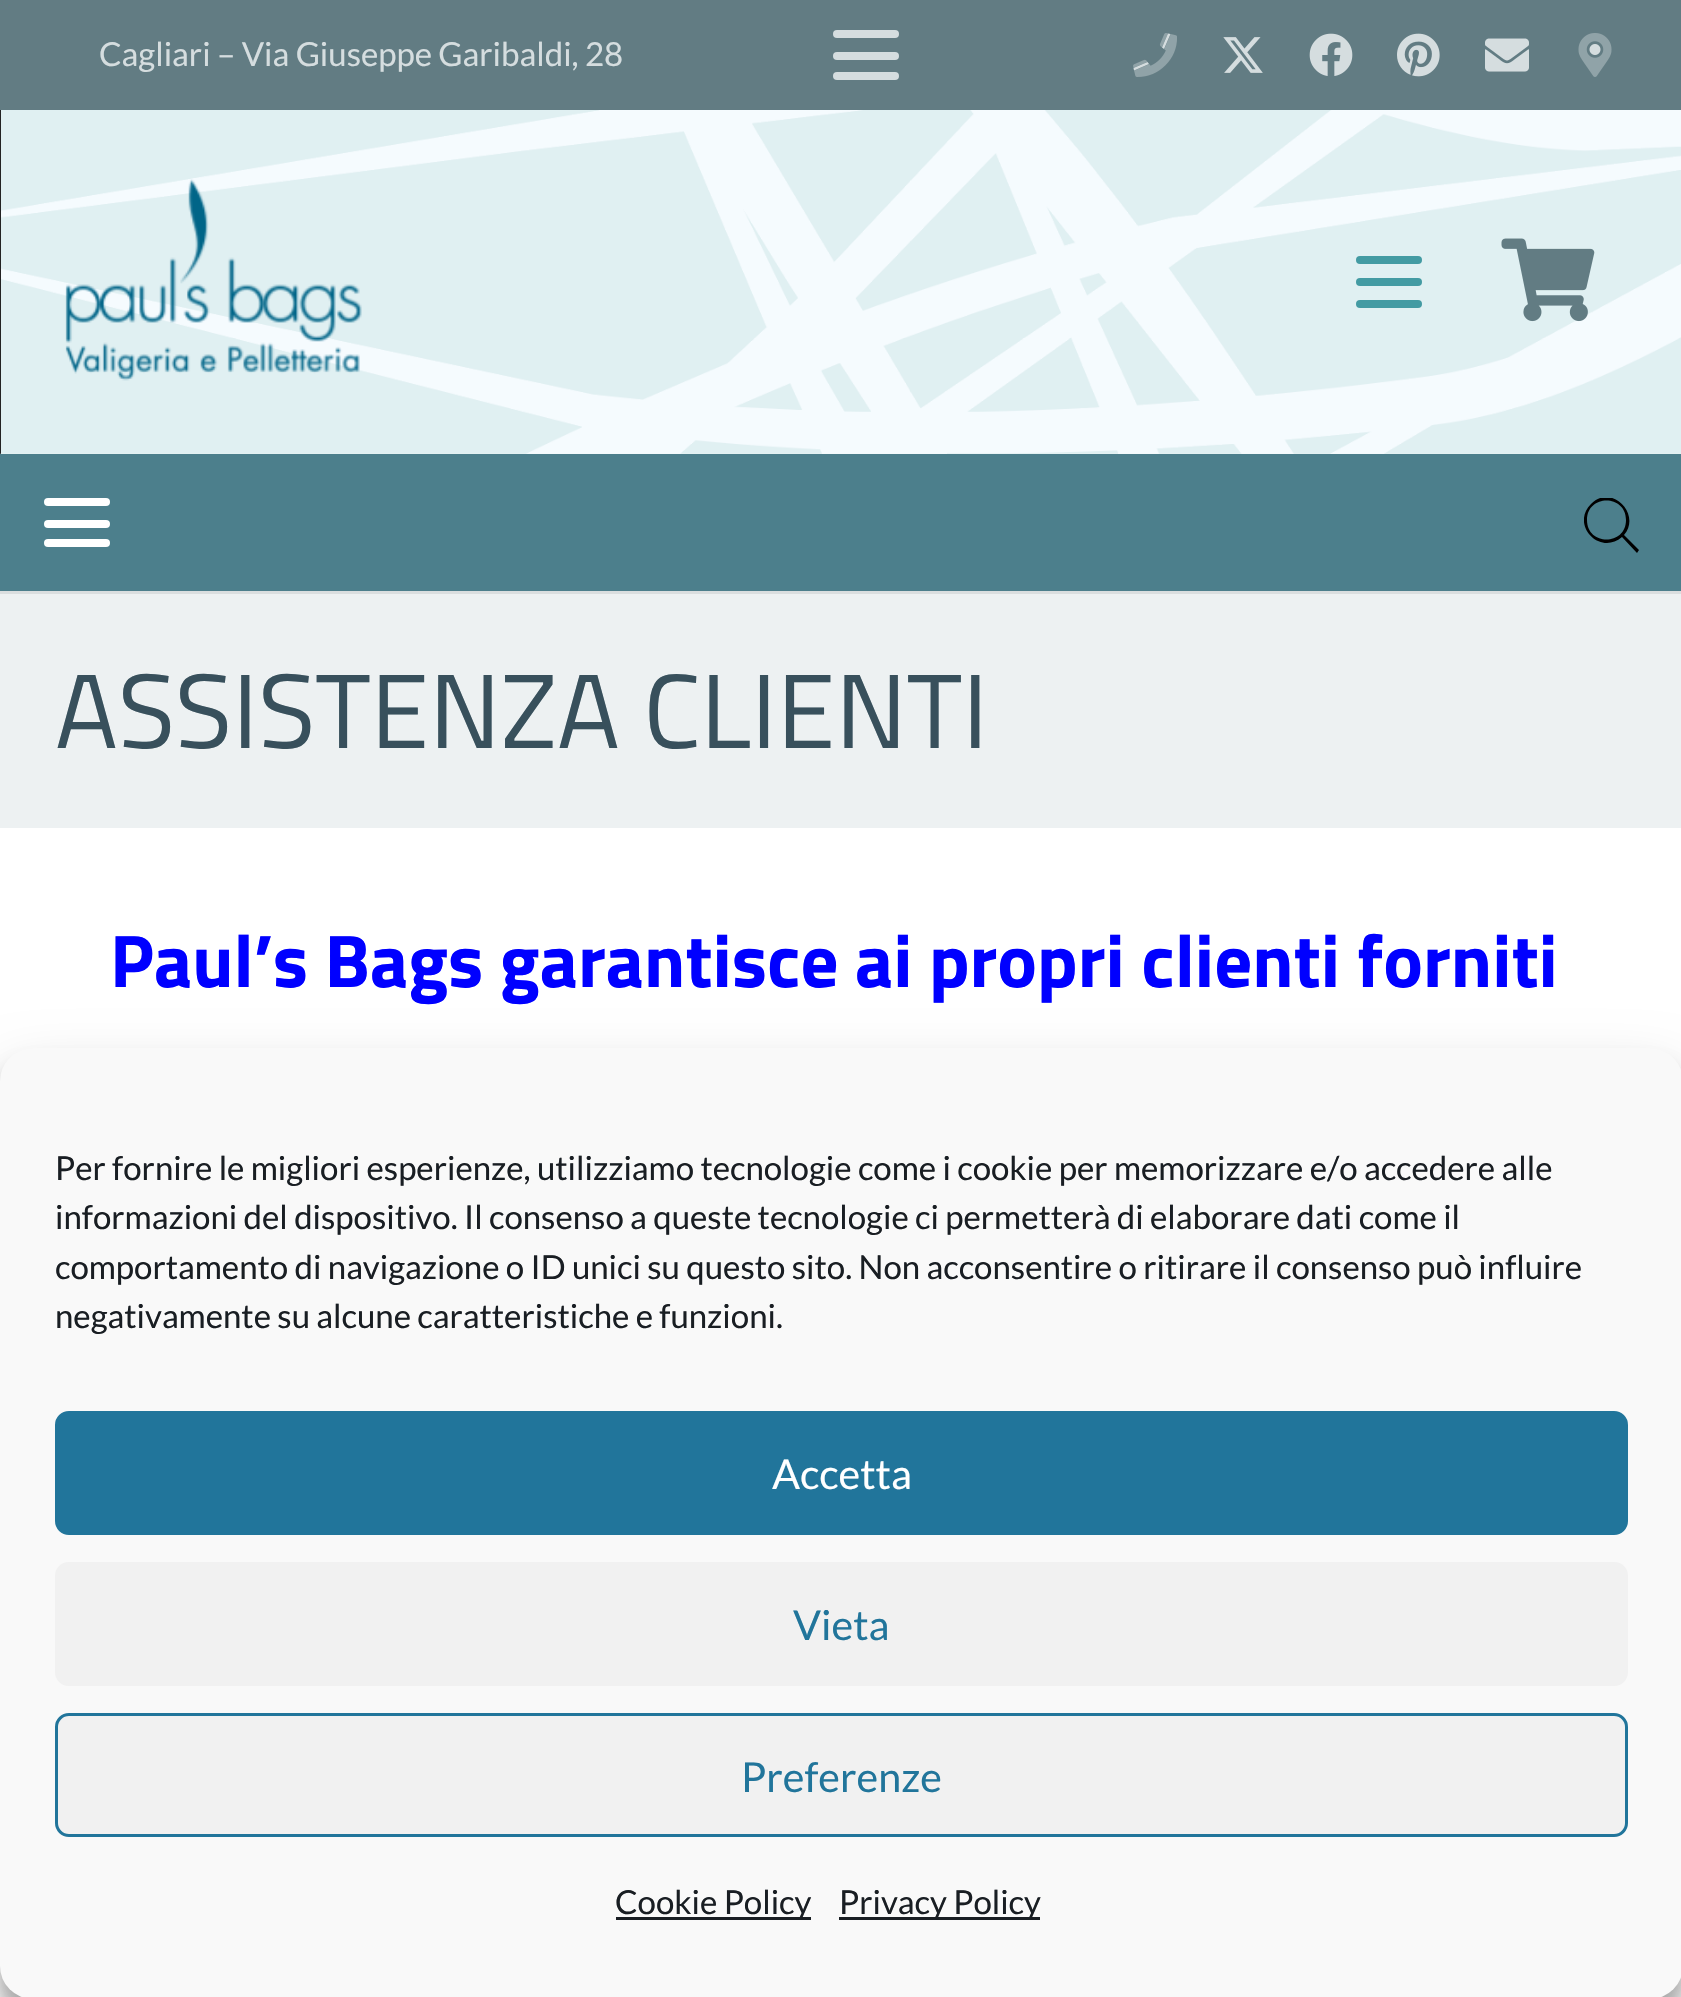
void draw(SkCanvas* canvas) {
	SkPaint fill;
	fill.setAntiAlias(true);
	auto makeFont = [&](const char* family, int weight, float size, bool italic = false) {
		SkFontStyle style(weight, SkFontStyle::kNormal_Width,
			italic ? SkFontStyle::kItalic_Slant : SkFontStyle::kUpright_Slant);
		SkFont result(fontMgr->matchFamilyStyle(family, style), size);
		result.setSubpixel(true);
		return result;
	};
	auto text = [&](const char* s, float x, float y, const SkFont& font) {
		canvas->drawString(s, x, y, font, fill);
	};
	auto box = [&](float l, float t, float r, float b) {
		canvas->drawRect(SkRect::MakeLTRB(l, t, r, b), fill);
	};
	auto roundBox = [&](float l, float t, float r, float b, float radius) {
		canvas->drawRoundRect(SkRect::MakeLTRB(l, t, r, b), radius, radius, fill);
	};
	auto picture = [&](const char* path, float l, float t, float r, float b) {
		auto image = SkImages::DeferredFromEncodedData(SkData::MakeFromFileName(path));
		canvas->drawImageRect(image, SkRect::MakeLTRB(l, t, r, b), SkSamplingOptions());
	};
	canvas->clear(0xFFFFFFFF);
	fill.setColor(0xFF627C83);
	box(0, 0, 1681, 110);
	fill.setColor(0xFFD5DDDF);
	roundBox(833, 52, 899, 60, 4);
	roundBox(833, 30, 899, 38, 4);
	roundBox(833, 72, 899, 80, 4);
	canvas->drawPath(SkPathBuilder().moveTo(1168, 33.5f).lineTo(1170.5f, 34).lineTo(1164, 49).lineTo(1162, 47.5f).close().moveTo(1133.5f, 68).lineTo(1147.5f, 62).lineTo(1149, 64).lineTo(1134, 70.5f).close().detach(), fill);
	picture("image0.png", 1133, 33, 1177, 77);
	picture("image1.png", 1223, 37, 1263, 73);
	picture("image2.png", 1309, 33, 1353, 76);
	picture("image3.png", 1397, 33, 1440, 77);
	picture("image4.png", 1485, 38, 1529, 72);
	picture("image6.png", 1589, 44, 1601, 55);
	picture("image5.png", 1578, 33, 1612, 77);
	fill.setColor(0xFFEDF1F2);
	box(0, 453, 1681, 828);
	picture("image7.png", 0, 110, 1681, 454);
	picture("image8.png", 65, 179, 362, 381);
	fill.setColor(0xFF439BA3);
	roundBox(1356, 278, 1422, 286, 4);
	roundBox(1356, 256, 1422, 264, 4);
	roundBox(1356, 300, 1422, 308, 4);
	picture("image9.png", 1501, 238, 1595, 322);
	fill.setColor(0xFFDADEDF);
	box(0, 591, 1681, 594);
	fill.setColor(0xFF4C7F8C);
	box(0, 454, 1681, 591);
	fill.setColor(0xFFFFFFFF);
	roundBox(44, 520, 110, 528, 4);
	roundBox(44, 498, 110, 506, 4);
	roundBox(44, 539, 110, 547, 4);
	canvas->save();
	canvas->clipRect(SkRect::MakeLTRB(1584, 498, 1639, 553));
	fill.setColor(0xFF000000);
	canvas->drawPath(SkPathBuilder().moveTo(1639, 550).lineTo(1624, 535).cubicTo(1642, 514, 1611, 483, 1591, 504).cubicTo(1570, 525, 1600, 556, 1622, 537).lineTo(1637, 553).close().moveTo(1587, 520).cubicTo(1587, 494, 1626, 494, 1626, 520).cubicTo(1626, 546, 1587, 546, 1587, 520).close().detach(), fill);
	canvas->restore();
	fill.setColor(0x3B000000);
	fill.setMaskFilter(SkMaskFilter::MakeBlur(kNormal_SkBlurStyle, 8));
	canvas->drawRoundRect(SkRect::MakeLTRB(0, 1064, 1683, 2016), 33, 33, fill);
	fill.setMaskFilter(nullptr);
	fill.setColor(0x30000000);
	fill.setMaskFilter(SkMaskFilter::MakeBlur(kNormal_SkBlurStyle, 27.5f));
	canvas->drawRoundRect(SkRect::MakeLTRB(0, 1075, 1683, 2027), 33, 33, fill);
	fill.setMaskFilter(nullptr);
	fill.setColor(0xFFF9F9F9);
	roundBox(0, 1048, 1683, 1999, 33);
	fill.setColor(0xFF21759B);
	canvas->drawRoundRect(SkRect::MakeLTRB(56.5f, 1412.5f, 1626.5f, 1533.5f), 12.5f, 12.5f, fill);
	fill.setStyle(SkPaint::kStroke_Style);
	fill.setStrokeWidth(3);
	canvas->drawRoundRect(SkRect::MakeLTRB(56.5f, 1412.5f, 1626.5f, 1533.5f), 12.5f, 12.5f, fill);
	fill.setStyle(SkPaint::kFill_Style);
	fill.setColor(0xFFF1F1F1);
	roundBox(55, 1562, 1628, 1686, 14);
	canvas->drawRoundRect(SkRect::MakeLTRB(56.5f, 1714.5f, 1626.5f, 1835.5f), 12.5f, 12.5f, fill);
	fill.setStyle(SkPaint::kStroke_Style);
	fill.setColor(0xFF21759B);
	canvas->drawRoundRect(SkRect::MakeLTRB(56.5f, 1714.5f, 1626.5f, 1835.5f), 12.5f, 12.5f, fill);
	fill.setStyle(SkPaint::kFill_Style);
	fill.setColor(0xFF191E23);
	box(616, 1917, 811, 1920);
	box(839, 1917, 1040, 1920);
	auto font1 = makeFont("Lato", 400, 33);
	fill.setColor(0xFFD5DDDF);
	text("Cagliari – Via Giuseppe Garibaldi, 28", 99, 66, font1);
	auto font2 = makeFont("Titillium Web", 400, 105.5f);
	fill.setColor(0xFF38505C);
	text("ASSISTENZA CLIENTI", 55, 748, font2);
	auto font3 = makeFont("Titillium Web", 700, 74.75f);
	fill.setColor(0xFF0000FF);
	text("Paul’s Bags garantisce ai propri clienti forniti", 110, 987, font3);
	fill.setColor(0xFF191E23);
	text("Per fornire le migliori esperienze, utilizziamo tecnologie come i cookie per memorizzare e/o accedere alle", 55, 1180, font1);
	text("informazioni del dispositivo. Il consenso a queste tecnologie ci permetterà di elaborare dati come il", 55, 1229, font1);
	text("comportamento di navigazione o ID unici su questo sito. Non acconsentire o ritirare il consenso può influire", 55, 1279, font1);
	text("negativamente su alcune caratteristiche e funzioni.", 55, 1328, font1);
	auto font4 = makeFont("Lato", 400, 41.25f);
	fill.setColor(0xFFFFFFFF);
	text("Accetta", 772, 1489, font4);
	fill.setColor(0xFF21759B);
	text("Vieta", 793, 1640, font4);
	text("Preferenze", 741, 1792, font4);
	fill.setColor(0xFF191E23);
	text("Cookie Policy", 615, 1914, font1);
	text("Privacy Policy", 839, 1914, font1);
}
